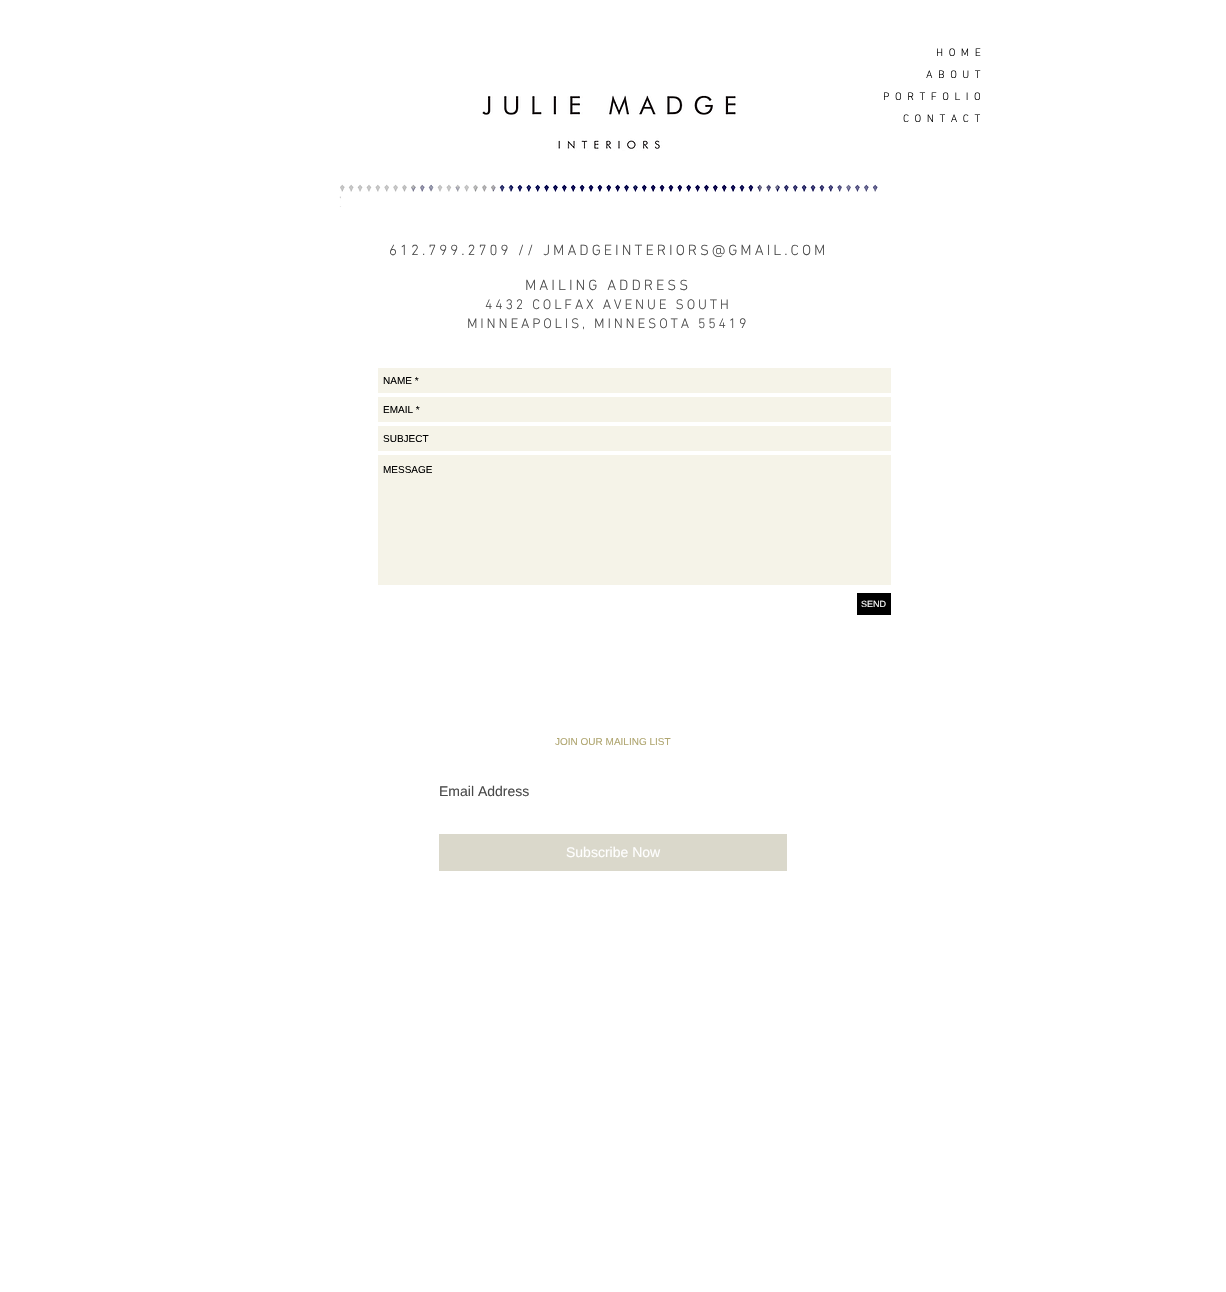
void draw(SkCanvas* canvas) {
	SkPaint fill;
	fill.setAntiAlias(true);
	auto makeFont = [&](const char* family, int weight, float size, bool italic = false) {
		SkFontStyle style(weight, SkFontStyle::kNormal_Width,
			italic ? SkFontStyle::kItalic_Slant : SkFontStyle::kUpright_Slant);
		SkFont result(fontMgr->matchFamilyStyle(family, style), size);
		result.setSubpixel(true);
		return result;
	};
	auto text = [&](const char* s, float x, float y, const SkFont& font) {
		canvas->drawString(s, x, y, font, fill);
	};
	auto spacedText = [&](const char* s, float x, float y, const SkFont& font, const SkPaint& ink, float letter, float word) {
		std::vector<SkGlyphID> glyphs(font.countText(s, strlen(s), SkTextEncoding::kUTF8));
		std::vector<float> xs(glyphs.size());
		font.textToGlyphs(s, strlen(s), SkTextEncoding::kUTF8, glyphs);
		font.getXPos(glyphs, xs, x);
		float extra = 0;
		for (size_t i = 0; i < glyphs.size(); i++) {
			xs[i] += extra;
			extra += letter + word * (glyphs[i] == font.unicharToGlyph(' '));
		}
		canvas->drawTextBlob(SkTextBlob::MakeFromPosHGlyphs(glyphs, xs, y, font), 0, 0, ink);
	};
	auto box = [&](float l, float t, float r, float b) {
		canvas->drawRect(SkRect::MakeLTRB(l, t, r, b), fill);
	};
	auto picture = [&](const char* path, float l, float t, float r, float b) {
		auto image = SkImages::DeferredFromEncodedData(SkData::MakeFromFileName(path));
		canvas->drawImageRect(image, SkRect::MakeLTRB(l, t, r, b), SkSamplingOptions());
	};
	canvas->clear(0xFFFFFFFF);
	picture("image1.png", 339, 100, 878, 207);
	picture("image0.png", 482, 95, 738, 150);
	fill.setColor(0xFFF5F3E8);
	box(378, 368, 891, 393);
	box(378, 397, 891, 422);
	box(378, 426, 891, 451);
	box(378, 455, 891, 585);
	fill.setColor(0xFF000000);
	box(857, 593, 891, 615);
	fill.setColor(0xFFDAD8CB);
	box(439, 834, 787, 871);
	auto font1 = makeFont("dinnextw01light", 300, 11);
	fill.setColor(0xFF000000);
	spacedText("HOME", 936, 56, font1, fill, 5.5f, 0);
	spacedText("ABOUT", 926, 78, font1, fill, 5.5f, 0);
	spacedText("PORTFOLIO", 883, 100, font1, fill, 5.5f, 0);
	spacedText("CONTACT", 903, 122, font1, fill, 5.5f, 0);
	auto font2 = makeFont("dinnextw01light", 300, 15);
	fill.setColor(0xFF4A4A4A);
	spacedText("612.799.2709 // JMADGEINTERIORS@GMAIL.COM", 389, 255, font2, fill, 3, 0);
	spacedText("MAILING ADDRESS", 525, 290, font2, fill, 3, 0);
	auto font3 = makeFont("dinnextw01light", 300, 14);
	spacedText("4432 COLFAX AVENUE SOUTH", 485, 309, font3, fill, 2.8f, 0);
	spacedText("MINNEAPOLIS, MINNESOTA 55419", 467, 328, font3, fill, 2.8f, 0);
	auto font4 = makeFont("Liberation Sans", 400, 10);
	fill.setColor(0xFF000000);
	text("NAME *", 383, 384, font4);
	text("EMAIL *", 383, 413, font4);
	text("SUBJECT", 383, 442, font4);
	text("MESSAGE", 383, 473, font4);
	auto font5 = makeFont("Liberation Sans", 400, 9);
	fill.setColor(0xFFFFFFFF);
	text("SEND", 861, 607, font5);
	fill.setColor(0xFFB0A671);
	text("JOIN OUR MAILING LIST", 555, 745, font4);
	auto font6 = makeFont("Liberation Sans", 400, 14);
	fill.setColor(0xFF4A4A4A);
	text("Email Address", 439, 796, font6);
	fill.setColor(0xFFFFFFFF);
	text("Subscribe Now", 566, 857, font6);
}
